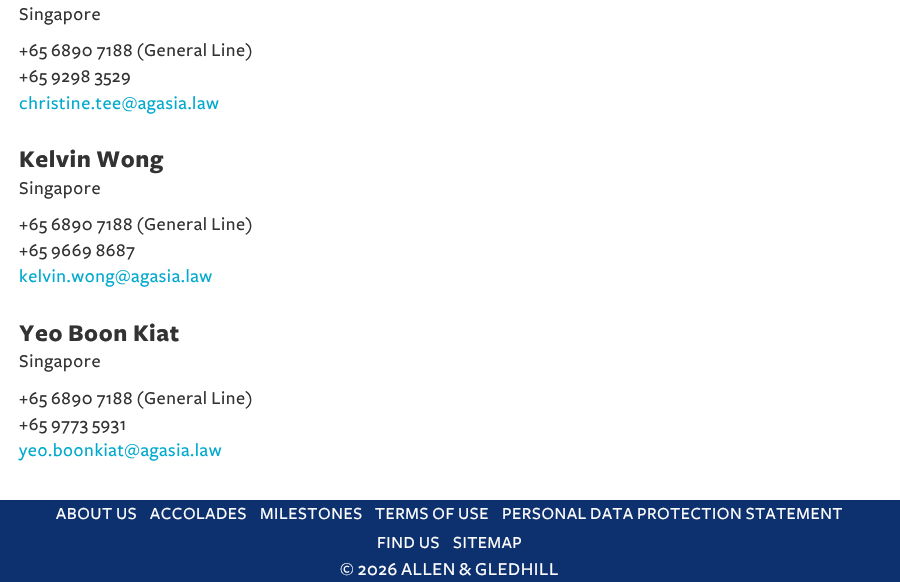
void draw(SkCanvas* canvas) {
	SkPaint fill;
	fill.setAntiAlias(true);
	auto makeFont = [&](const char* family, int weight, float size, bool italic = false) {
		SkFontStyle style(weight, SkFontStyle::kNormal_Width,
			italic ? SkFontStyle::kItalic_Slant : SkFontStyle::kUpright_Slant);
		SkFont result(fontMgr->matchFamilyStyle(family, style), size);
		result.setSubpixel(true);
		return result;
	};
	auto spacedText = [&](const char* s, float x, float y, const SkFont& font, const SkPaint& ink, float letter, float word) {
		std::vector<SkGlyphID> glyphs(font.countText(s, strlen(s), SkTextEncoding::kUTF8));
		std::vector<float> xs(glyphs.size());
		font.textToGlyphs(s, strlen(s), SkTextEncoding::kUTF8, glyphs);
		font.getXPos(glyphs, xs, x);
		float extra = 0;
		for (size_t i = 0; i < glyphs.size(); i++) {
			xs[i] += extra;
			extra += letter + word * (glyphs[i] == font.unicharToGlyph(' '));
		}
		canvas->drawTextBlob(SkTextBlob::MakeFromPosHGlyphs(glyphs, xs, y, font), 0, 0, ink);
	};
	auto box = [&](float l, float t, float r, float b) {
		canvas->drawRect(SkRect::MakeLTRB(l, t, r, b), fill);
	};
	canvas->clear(0xFFFFFFFF);
	fill.setColor(0xFF0D316E);
	box(0, 500, 900, 582);
	auto font1 = makeFont("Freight", 500, 18.75f);
	fill.setColor(0xFF333333);
	spacedText("Singapore", 19, 20, font1, fill, 0.6f, 0);
	spacedText("+65 6890 7188 (General Line)", 19, 56, font1, fill, 0.6f, 0);
	spacedText("+65 9298 3529", 19, 82, font1, fill, 0.6f, 0);
	fill.setColor(0xFF00A9CE);
	spacedText("christine.tee@agasia.law", 19, 109, font1, fill, 0.6f, 0);
	auto font2 = makeFont("Freight", 700, 25);
	fill.setColor(0xFF333333);
	spacedText("Kelvin Wong", 19, 167, font2, fill, 0.6f, 0);
	spacedText("Singapore", 19, 194, font1, fill, 0.6f, 0);
	spacedText("+65 6890 7188 (General Line)", 19, 230, font1, fill, 0.6f, 0);
	spacedText("+65 9669 8687", 19, 256, font1, fill, 0.6f, 0);
	fill.setColor(0xFF00A9CE);
	spacedText("kelvin.wong@agasia.law", 19, 282, font1, fill, 0.6f, 0);
	fill.setColor(0xFF333333);
	spacedText("Yeo Boon Kiat", 19, 341, font2, fill, 0.6f, 0);
	spacedText("Singapore", 19, 367, font1, fill, 0.6f, 0);
	spacedText("+65 6890 7188 (General Line)", 19, 404, font1, fill, 0.6f, 0);
	spacedText("+65 9773 5931", 19, 430, font1, fill, 0.6f, 0);
	fill.setColor(0xFF00A9CE);
	spacedText("yeo.boonkiat@agasia.law", 19, 456, font1, fill, 0.6f, 0);
	auto font3 = makeFont("Freight", 500, 17.5f);
	fill.setColor(0xFFFFFFFF);
	spacedText("ABOUT US", 56, 519, font3, fill, 0.6f, 0);
	spacedText("ACCOLADES", 150, 519, font3, fill, 0.6f, 0);
	spacedText("MILESTONES", 260, 519, font3, fill, 0.6f, 0);
	spacedText("TERMS OF USE", 375, 519, font3, fill, 0.6f, 0);
	spacedText("PERSONAL DATA PROTECTION STATEMENT", 502, 519, font3, fill, 0.6f, 0);
	spacedText("FIND US", 377, 548, font3, fill, 0.6f, 0);
	spacedText("SITEMAP", 453, 548, font3, fill, 0.6f, 0);
	spacedText("© 2026 ALLEN & GLEDHILL", 340, 575, font1, fill, 0.6f, 0);
}
